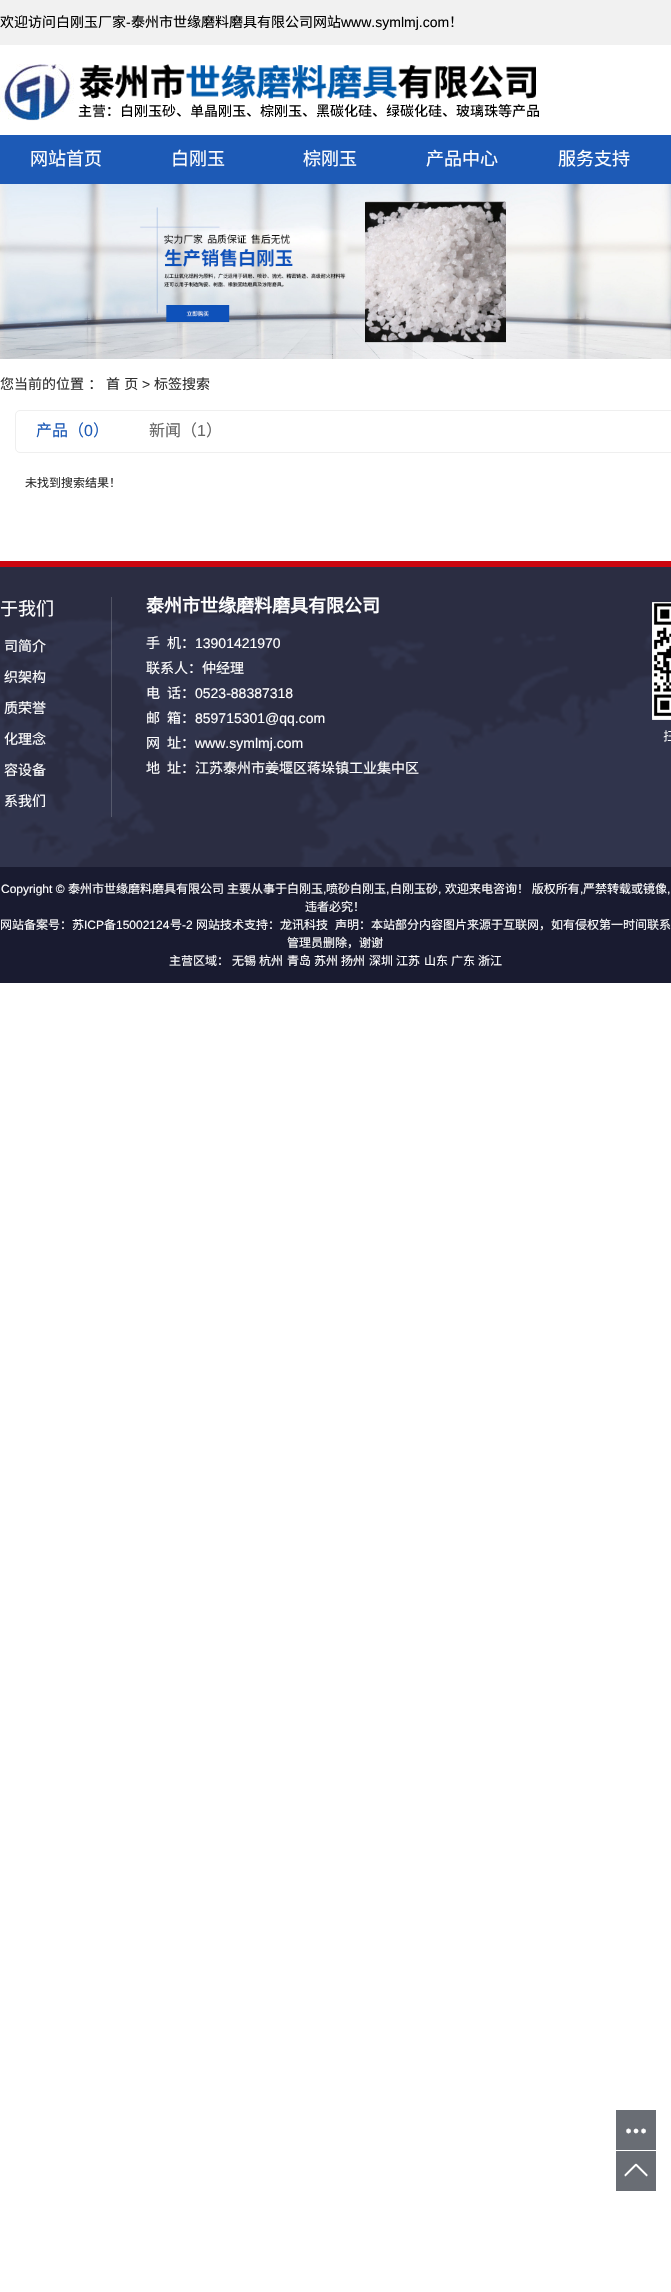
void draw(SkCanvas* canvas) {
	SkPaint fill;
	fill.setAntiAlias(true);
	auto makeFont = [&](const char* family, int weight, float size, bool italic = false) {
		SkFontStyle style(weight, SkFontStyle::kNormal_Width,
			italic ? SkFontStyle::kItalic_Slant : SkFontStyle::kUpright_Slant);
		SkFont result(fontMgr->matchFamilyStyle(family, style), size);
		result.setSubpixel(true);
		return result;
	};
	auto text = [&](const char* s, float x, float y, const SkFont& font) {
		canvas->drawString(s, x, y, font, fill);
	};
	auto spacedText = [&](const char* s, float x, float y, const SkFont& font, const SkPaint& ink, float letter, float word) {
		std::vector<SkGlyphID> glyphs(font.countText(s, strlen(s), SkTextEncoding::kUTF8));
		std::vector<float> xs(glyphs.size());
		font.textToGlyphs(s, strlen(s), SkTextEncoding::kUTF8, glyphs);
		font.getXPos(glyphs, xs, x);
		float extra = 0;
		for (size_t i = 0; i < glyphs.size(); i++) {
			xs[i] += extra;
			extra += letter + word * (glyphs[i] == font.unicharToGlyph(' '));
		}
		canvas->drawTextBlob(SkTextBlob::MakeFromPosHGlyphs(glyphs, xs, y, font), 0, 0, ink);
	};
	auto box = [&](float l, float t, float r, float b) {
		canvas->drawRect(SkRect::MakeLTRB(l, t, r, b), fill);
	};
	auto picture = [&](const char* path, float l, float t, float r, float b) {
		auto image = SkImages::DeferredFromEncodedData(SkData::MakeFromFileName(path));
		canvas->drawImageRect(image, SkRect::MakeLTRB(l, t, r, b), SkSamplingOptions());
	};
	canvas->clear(0xFFFFFFFF);
	fill.setColor(0xFFF1F1F1);
	box(0, 0, 671, 45);
	picture("image0.png", 0, 64, 539, 121);
	fill.setColor(0xFF1D5AB6);
	box(0, 135, 671, 184);
	picture("image1.png", 0, 184, 671, 359);
	fill.setStyle(SkPaint::kStroke_Style);
	fill.setStrokeWidth(1);
	fill.setColor(0xFFEFEFEF);
	canvas->drawRoundRect(SkRect::MakeLTRB(15.5f, 410.5f, 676.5f, 452.5f), 4.5f, 4.5f, fill);
	fill.setStyle(SkPaint::kFill_Style);
	fill.setColor(0xFF696D74);
	box(616, 2110, 656, 2150);
	picture("image2.png", 626, 2128, 646, 2134);
	box(616, 2151, 656, 2191);
	picture("image3.png", 624, 2163, 648, 2177);
	picture("image4.png", 0, 567, 671, 867);
	fill.setColor(0xFFCC060F);
	box(0, 561, 671, 567);
	fill.setColor(0x2EFFFFFF);
	box(111, 597, 112, 817);
	picture("image5.png", 652, 602, 671, 742);
	fill.setColor(0xFF191B30);
	box(0, 867, 671, 983);
	auto font1 = makeFont("Noto Sans CJK SC", 400, 14);
	fill.setColor(0xFF000000);
	text("欢迎访问白刚玉厂家", 0, 27, font1);
	auto font2 = makeFont("Liberation Sans", 400, 14);
	text("-", 126, 27, font2);
	text("泰州市世缘磨料磨具有限公司网站", 131, 27, font1);
	text("www.symlmj.com", 341, 27, font2);
	text("！", 449, 27, font1);
	auto font3 = makeFont("Noto Sans CJK SC", 400, 18);
	fill.setColor(0xFFFFFFFF);
	text("网站首页", 30, 165, font3);
	text("白刚玉", 171, 165, font3);
	text("棕刚玉", 303, 165, font3);
	text("产品中心", 426, 165, font3);
	text("服务支持", 558, 165, font3);
	fill.setColor(0xFF2F2F2F);
	spacedText("您当前的位置 ：", 0, 389, font1, fill, 0, 1);
	spacedText("首 页", 106, 389, font1, fill, 0, 1);
	text(">", 142, 389, font2);
	text("标签搜索", 154, 389, font1);
	auto font4 = makeFont("Noto Sans CJK SC", 400, 16);
	fill.setColor(0xFF1D5AB6);
	text("产品（", 36, 436, font4);
	auto font5 = makeFont("Liberation Sans", 400, 16);
	text("0", 84, 436, font5);
	text("）", 93, 436, font4);
	fill.setColor(0xFF666666);
	text("新闻（", 149, 436, font4);
	text("1", 197, 436, font5);
	text("）", 206, 436, font4);
	auto font6 = makeFont("Noto Sans CJK SC", 400, 12);
	fill.setColor(0xFF2F2F2F);
	text("未找到搜索结果！", 25, 487, font6);
	fill.setColor(0xFFFFFFFF);
	text("于我们", 0, 615, font3);
	text("司简介", 4, 651, font1);
	text("织架构", 4, 682, font1);
	text("质荣誉", 4, 713, font1);
	text("化理念", 4, 744, font1);
	text("容设备", 4, 775, font1);
	text("系我们", 4, 806, font1);
	auto font7 = makeFont("Noto Sans CJK SC", 700, 18);
	text("泰州市世缘磨料磨具有限公司", 146, 612, font7);
	text("手", 146, 648, font1);
	text("机：", 167, 648, font1);
	text("13901421970", 195, 648, font2);
	text("联系人：仲经理", 146, 673, font1);
	text("电", 146, 698, font1);
	text("话：", 167, 698, font1);
	text("0523-88387318", 195, 698, font2);
	text("邮", 146, 723, font1);
	text("箱：", 167, 723, font1);
	text("859715301@qq.com", 195, 723, font2);
	text("网", 146, 748, font1);
	text("址：", 167, 748, font1);
	text("www.symlmj.com", 195, 748, font2);
	text("地", 146, 773, font1);
	text("址：江苏泰州市姜堰区蒋垛镇工业集中区", 167, 773, font1);
	auto font8 = makeFont("Liberation Sans", 400, 12);
	text("Copyright ©", 1, 893, font8);
	text("泰州市世缘磨料磨具有限公司", 68, 893, font6);
	text("主要从事于白刚玉", 227, 893, font6);
	text(",", 323, 893, font8);
	text("喷砂白刚玉", 326, 893, font6);
	text(",", 386, 893, font8);
	text("白刚玉砂", 390, 893, font6);
	text(",", 438, 893, font8);
	text("欢迎来电咨询！ 版权所有", 445, 893, font6);
	text(",", 580, 893, font8);
	text("严禁转载或镜像", 583, 893, font6);
	text(",", 667, 893, font8);
	text("违者必究！", 305, 911, font6);
	text("网站备案号：苏", 0, 929, font6);
	text("ICP", 84, 929, font8);
	text("备", 104, 929, font6);
	text("15002124", 116, 929, font8);
	text("号", 170, 929, font6);
	text("-2", 182, 929, font8);
	text("网站技术支持：龙讯科技", 196, 929, font6);
	text("声明：本站部分内容图片来源于互联网，如有侵权第一时间联系", 335, 929, font6);
	text("管理员删除，谢谢", 287, 947, font6);
	text("主营区域：", 169, 965, font6);
	text("无锡", 232, 965, font6);
	text("杭州", 259, 965, font6);
	text("青岛", 287, 965, font6);
	text("苏州", 314, 965, font6);
	text("扬州", 341, 965, font6);
	text("深圳", 369, 965, font6);
	text("江苏", 396, 965, font6);
	text("山东", 424, 965, font6);
	text("广东", 451, 965, font6);
	text("浙江", 478, 965, font6);
}
